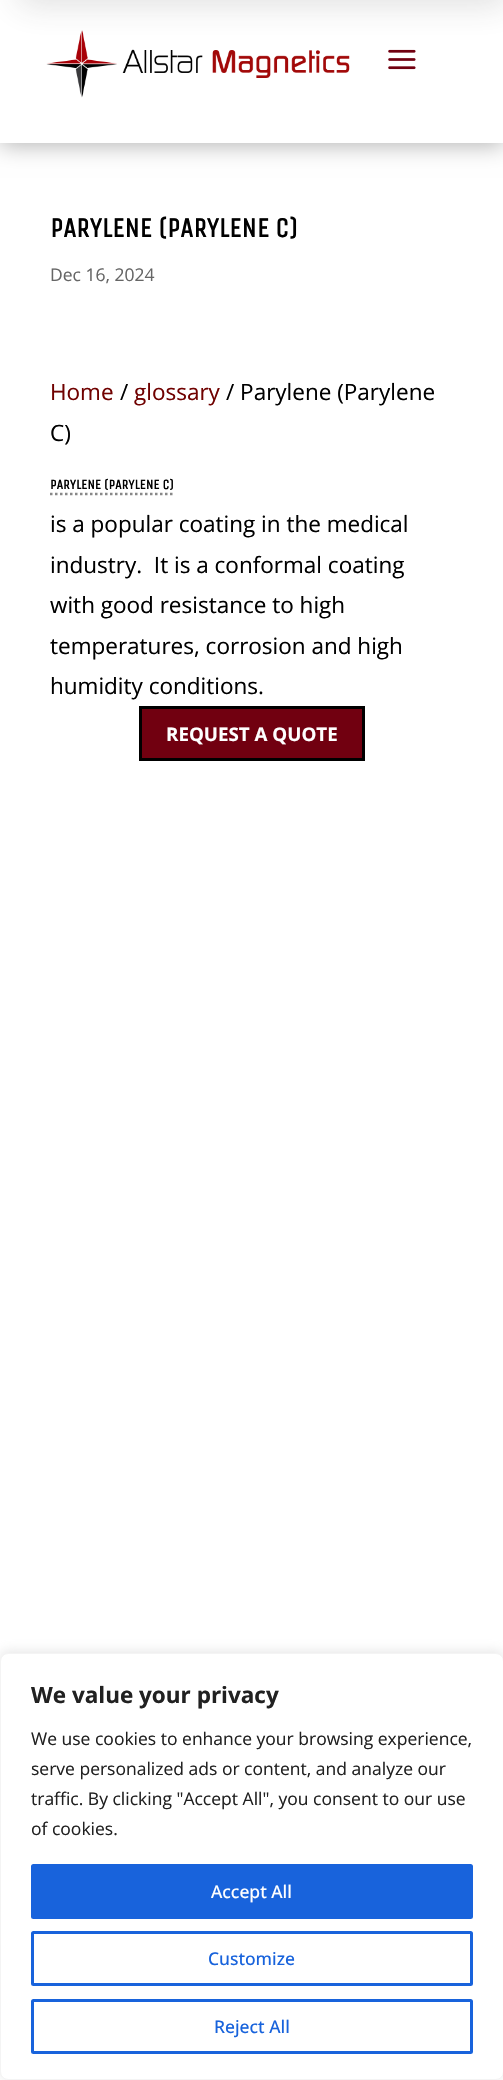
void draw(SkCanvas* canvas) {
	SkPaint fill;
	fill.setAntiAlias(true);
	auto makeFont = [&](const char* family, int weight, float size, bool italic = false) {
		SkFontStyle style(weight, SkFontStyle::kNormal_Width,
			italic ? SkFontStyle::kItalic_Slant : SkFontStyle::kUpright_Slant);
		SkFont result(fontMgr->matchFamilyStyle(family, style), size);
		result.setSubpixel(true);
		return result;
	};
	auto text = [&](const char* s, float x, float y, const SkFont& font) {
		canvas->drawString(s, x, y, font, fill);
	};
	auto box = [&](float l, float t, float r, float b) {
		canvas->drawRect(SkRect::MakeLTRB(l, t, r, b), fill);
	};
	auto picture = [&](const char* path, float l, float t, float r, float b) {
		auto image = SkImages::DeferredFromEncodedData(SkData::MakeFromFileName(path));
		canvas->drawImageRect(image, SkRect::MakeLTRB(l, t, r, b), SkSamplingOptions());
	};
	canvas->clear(0xFFFFFFFF);
	fill.setColor(0x4D000000);
	fill.setMaskFilter(SkMaskFilter::MakeBlur(kNormal_SkBlurStyle, 11));
	canvas->drawRect(SkRect::MakeLTRB(0, 3, 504, 145), fill);
	fill.setMaskFilter(nullptr);
	fill.setColor(0xFFFFFFFF);
	box(0, 0, 503, 143);
	picture("image0.png", 46, 30, 350, 98);
	picture("image1.png", 388, 49, 416, 70);
	fill.setColor(0x29333333);
	fill.setMaskFilter(SkMaskFilter::MakeBlur(kNormal_SkBlurStyle, 17));
	canvas->drawRect(SkRect::MakeLTRB(19, -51, 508, 4), fill);
	fill.setMaskFilter(nullptr);
	fill.setStyle(SkPaint::kStroke_Style);
	fill.setStrokeWidth(2.5f);
	fill.setColor(0xFF888888);
	fill.setPathEffect(SkDashPathEffect::Make({{2.5f, 2.5f}}, 0));
	canvas->drawPath(SkPathBuilder().moveTo(50, 494).lineTo(174, 494).detach(), fill);
	fill.setPathEffect(nullptr);
	fill.setStyle(SkPaint::kFill_Style);
	fill.setColor(0xFF710010);
	canvas->drawRect(SkRect::MakeLTRB(140.5f, 707.5f, 363.5f, 759.5f), fill);
	fill.setStyle(SkPaint::kStroke_Style);
	fill.setStrokeWidth(3);
	fill.setColor(0xFF000000);
	canvas->drawRect(SkRect::MakeLTRB(140.5f, 707.5f, 363.5f, 759.5f), fill);
	fill.setStyle(SkPaint::kFill_Style);
	fill.setColor(0x4DACABAB);
	fill.setMaskFilter(SkMaskFilter::MakeBlur(kNormal_SkBlurStyle, 6));
	canvas->drawRoundRect(SkRect::MakeLTRB(0, 1651, 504, 2079), 8, 8, fill);
	fill.setMaskFilter(nullptr);
	fill.setColor(0xFFFFFFFF);
	canvas->drawRoundRect(SkRect::MakeLTRB(0.5f, 1653.5f, 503.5f, 2079.5f), 7.5f, 7.5f, fill);
	fill.setStyle(SkPaint::kStroke_Style);
	fill.setStrokeWidth(1);
	fill.setColor(0xFFF4F4F4);
	canvas->drawRoundRect(SkRect::MakeLTRB(0.5f, 1653.5f, 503.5f, 2079.5f), 7.5f, 7.5f, fill);
	fill.setStyle(SkPaint::kFill_Style);
	fill.setColor(0xFF1863DC);
	canvas->drawRoundRect(SkRect::MakeLTRB(32.5f, 1865.5f, 471.5f, 1917.5f), 1, 1, fill);
	fill.setStyle(SkPaint::kStroke_Style);
	fill.setStrokeWidth(3);
	canvas->drawRoundRect(SkRect::MakeLTRB(32.5f, 1865.5f, 471.5f, 1917.5f), 1, 1, fill);
	canvas->drawRoundRect(SkRect::MakeLTRB(32.5f, 1932.5f, 471.5f, 1984.5f), 1, 1, fill);
	canvas->drawRoundRect(SkRect::MakeLTRB(32.5f, 2000.5f, 471.5f, 2052.5f), 1, 1, fill);
	auto font1 = makeFont("Unica One", 700, 27.5f);
	fill.setStyle(SkPaint::kFill_Style);
	fill.setColor(0xFF000000);
	text("PARYLENE (PARYLENE C)", 50, 237, font1);
	auto font2 = makeFont("Open Sans", 400, 17.5f);
	fill.setColor(0xFF666666);
	text("Dec 16, 2024", 50, 281, font2);
	auto font3 = makeFont("Open Sans", 400, 22.5f);
	fill.setColor(0xFF700100);
	text("Home", 50, 400, font3);
	fill.setColor(0xFF000000);
	text("/", 120, 400, font3);
	fill.setColor(0xFF700100);
	text("glossary", 134, 400, font3);
	fill.setColor(0xFF000000);
	text("/ Parylene (Parylene", 226, 400, font3);
	text("C)", 50, 441, font3);
	auto font4 = makeFont("Unica One", 700, 13.75f);
	text("PARYLENE (PARYLENE C)", 50, 489, font4);
	text("is a popular coating in the medical", 50, 532, font3);
	text("industry.  It is a conformal coating", 50, 573, font3);
	text("with good resistance to high", 50, 613, font3);
	text("temperatures, corrosion and high", 50, 654, font3);
	text("humidity conditions.", 50, 694, font3);
	auto font5 = makeFont("Open Sans", 700, 18.75f);
	fill.setColor(0xFFFFFFFF);
	text("REQUEST A QUOTE", 166, 741, font5);
	auto font6 = makeFont("Open Sans", 700, 22.5f);
	fill.setColor(0xFF212121);
	text("We value your privacy", 31, 1703, font6);
	text("We use cookies to enhance your browsing experience,", 31, 1745, font2);
	text("serve personalized ads or content, and analyze our", 31, 1775, font2);
	text("traffic. By clicking \"Accept All\", you consent to our use", 31, 1805, font2);
	text("of cookies.", 31, 1835, font2);
	auto font7 = makeFont("Open Sans", 500, 17.5f);
	fill.setColor(0xFFFFFFFF);
	text("Accept All", 211, 1898, font7);
	fill.setColor(0xFF1863DC);
	text("Customize", 208, 1965, font7);
	text("Reject All", 214, 2033, font7);
}
